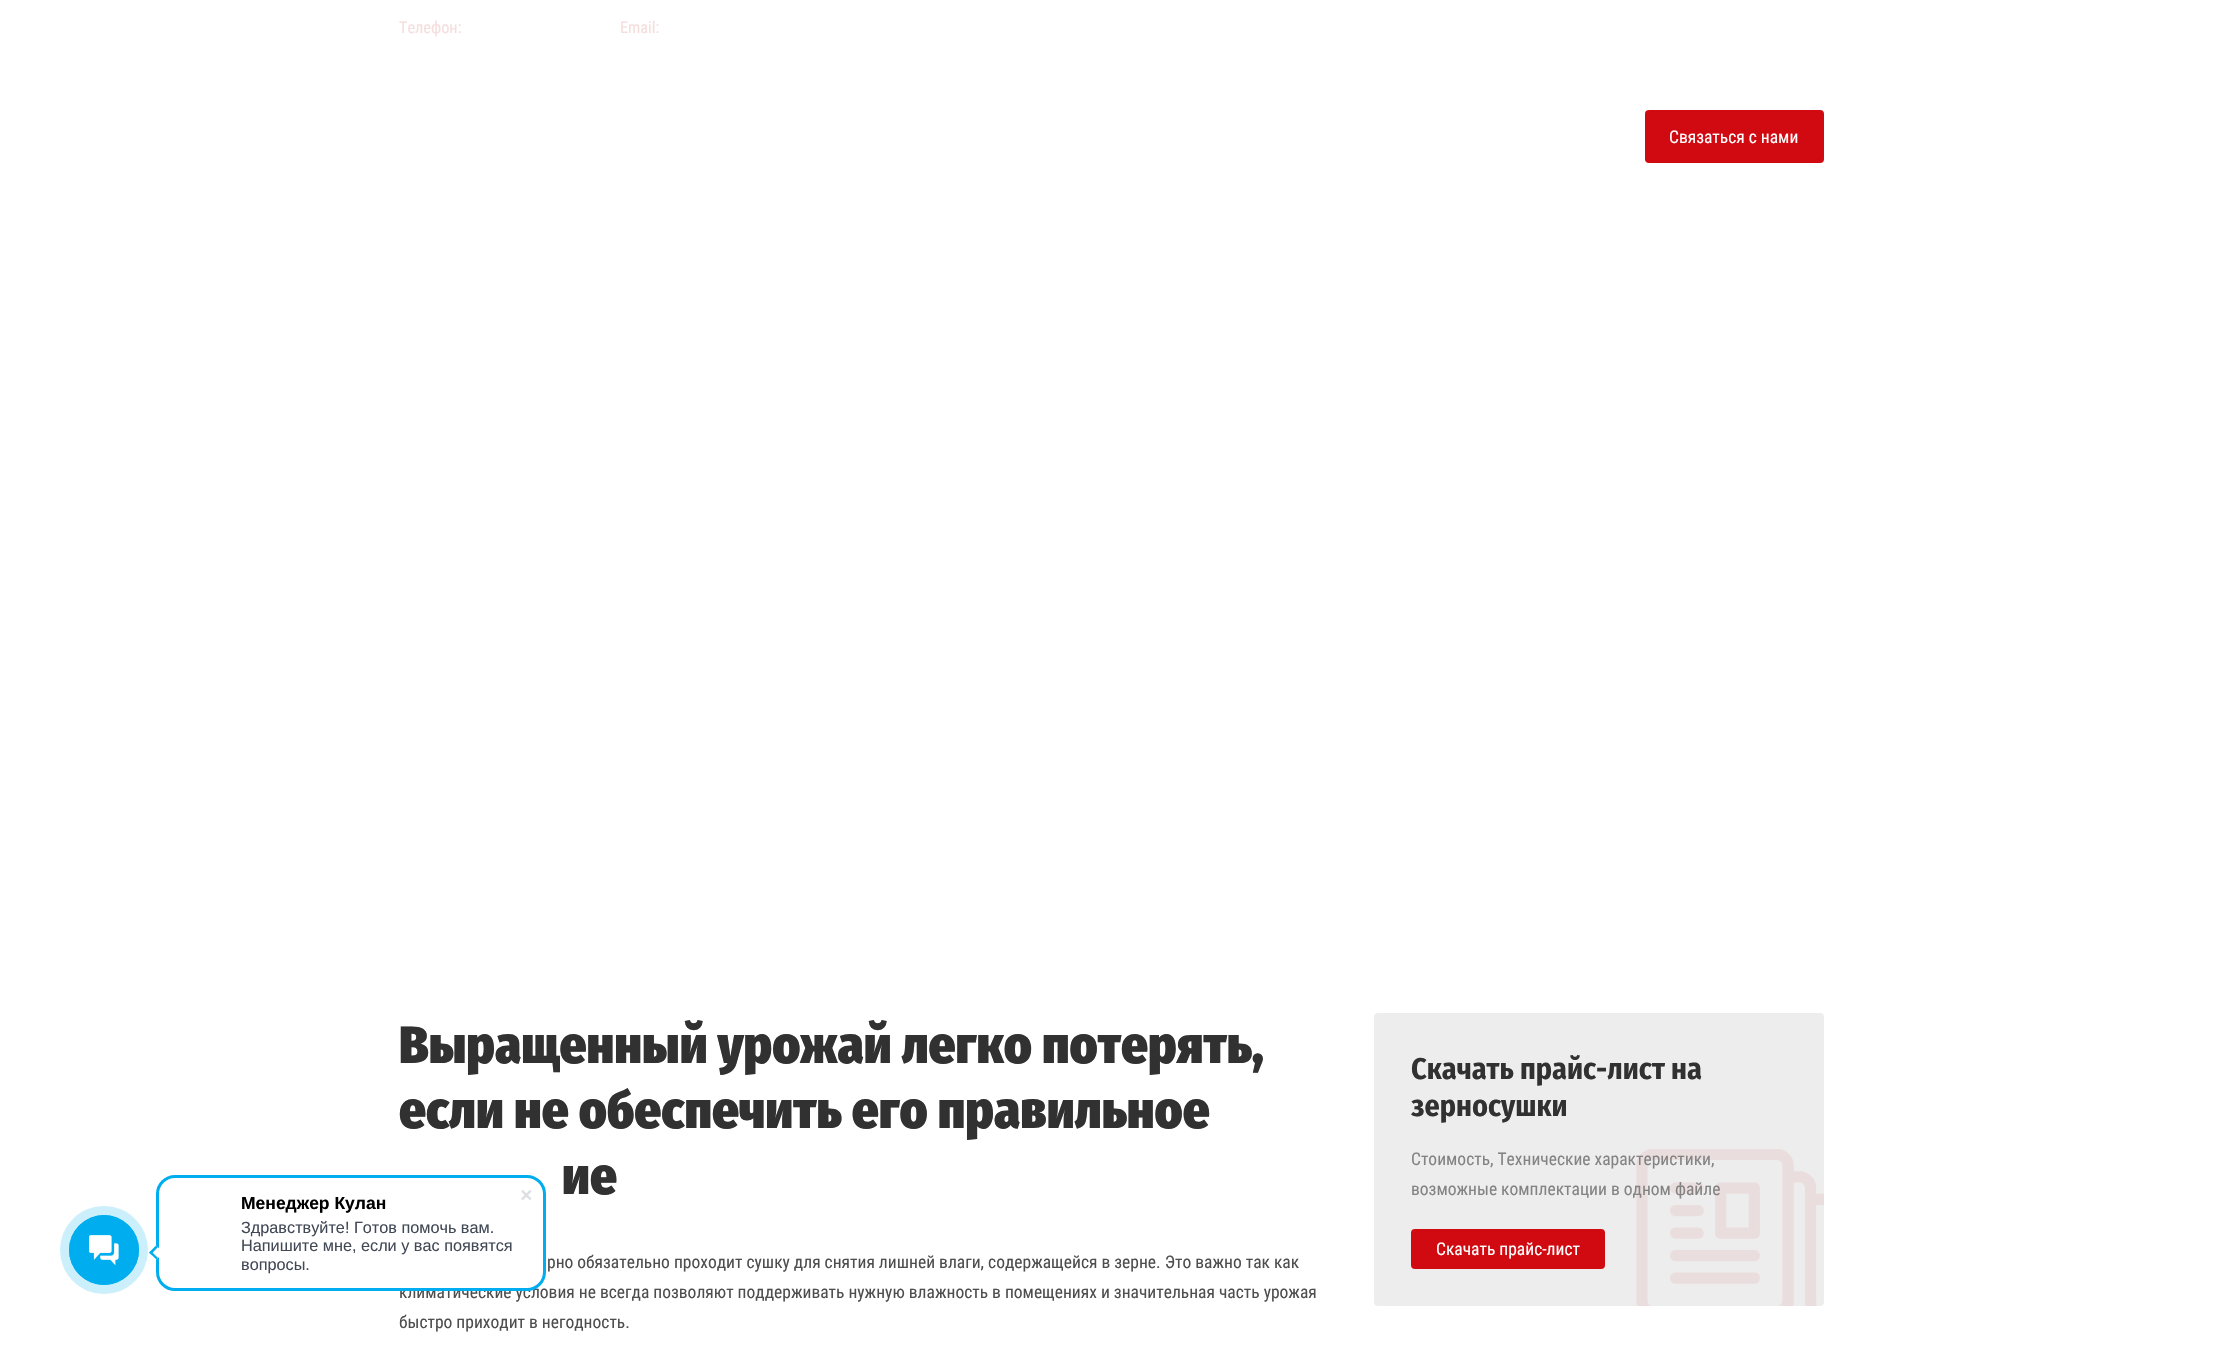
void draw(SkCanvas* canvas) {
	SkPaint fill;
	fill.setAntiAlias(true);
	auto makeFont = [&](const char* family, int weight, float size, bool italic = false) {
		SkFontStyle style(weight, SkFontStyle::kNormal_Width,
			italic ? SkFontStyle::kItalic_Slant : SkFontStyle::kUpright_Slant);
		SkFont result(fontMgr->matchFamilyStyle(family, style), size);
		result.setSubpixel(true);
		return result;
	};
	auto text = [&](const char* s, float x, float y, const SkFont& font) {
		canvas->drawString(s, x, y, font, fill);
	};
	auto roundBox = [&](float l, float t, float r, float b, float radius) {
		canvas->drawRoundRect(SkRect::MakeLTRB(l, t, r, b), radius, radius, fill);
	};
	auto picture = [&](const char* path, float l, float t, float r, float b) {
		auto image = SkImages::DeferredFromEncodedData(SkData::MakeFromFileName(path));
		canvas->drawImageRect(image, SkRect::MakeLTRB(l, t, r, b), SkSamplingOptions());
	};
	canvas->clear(0xFFFFFFFF);
	fill.setColor(0xFFCCEFFC);
	canvas->drawCircle(104, 1250, 44, fill);
	fill.setStyle(SkPaint::kStroke_Style);
	fill.setStrokeWidth(1);
	fill.setColor(0xFF00AEEF);
	canvas->drawCircle(104, 1250, 34.5f, fill);
	fill.setStyle(SkPaint::kFill_Style);
	canvas->drawCircle(104, 1250, 35, fill);
	picture("image0.png", 89, 1235, 119, 1265);
	fill.setColor(0xFFD10A11);
	roundBox(1645, 110, 1824, 163, 4);
	fill.setColor(0xFFEDEDED);
	roundBox(1374, 1013, 1824, 1306, 4);
	picture("image2.png", 1636, 1149, 1824, 1306);
	fill.setColor(0xFFD10A11);
	roundBox(1411, 1229, 1605, 1269, 4);
	auto font1 = makeFont("Roboto Condensed", 400, 16.25f);
	fill.setColor(0xFFF6DEDE);
	text("Телефон:", 399, 33, font1);
	text("Email:", 620, 33, font1);
	auto font2 = makeFont("Roboto Condensed", 400, 17.5f);
	fill.setColor(0xFFFFFFFF);
	text("Связаться с нами", 1669, 143, font2);
	auto font3 = makeFont("Fira Sans Condensed", 900, 52.5f);
	fill.setColor(0xFF313131);
	text("Выращенный урожай легко потерять,", 399, 1063, font3);
	text("если не обеспечить его правильное", 399, 1128, font3);
	text("ие", 562, 1194, font3);
	fill.setColor(0xFF4E4E4E);
	text("рно обязательно проходит сушку для снятия лишней влаги, содержащейся в зерне. Это важно так как", 547, 1268, font2);
	text("климатические условия не всегда позволяют поддерживать нужную влажность в помещениях и значительная часть урожая", 399, 1298, font2);
	fill.setColor(0xFFFFFFFF);
	canvas->drawRoundRect(SkRect::MakeLTRB(157.5f, 1176.5f, 544.5f, 1289.5f), 17.5f, 17.5f, fill);
	fill.setStyle(SkPaint::kStroke_Style);
	fill.setStrokeWidth(3);
	fill.setColor(0xFF00AEEF);
	canvas->drawRoundRect(SkRect::MakeLTRB(157.5f, 1176.5f, 544.5f, 1289.5f), 17.5f, 17.5f, fill);
	fill.setStyle(SkPaint::kFill_Style);
	fill.setColor(0xFFFFFFFF);
	canvas->drawPath(SkPathBuilder().moveTo(163.5f, 1252.5f).lineTo(156.5f, 1259.5f).lineTo(149, 1252.5f).lineTo(156, 1245.5f).close().detach(), fill);
	fill.setColor(0xFF00AEEF);
	canvas->drawPath(SkPathBuilder().moveTo(158, 1258).lineTo(156.5f, 1259.5f).lineTo(149, 1252.5f).lineTo(151, 1251).close().detach(), fill);
	canvas->drawPath(SkPathBuilder().moveTo(158, 1247).lineTo(151, 1254.5f).lineTo(149, 1252.5f).lineTo(156, 1245.5f).close().detach(), fill);
	picture("image1.png", 521, 1190, 532, 1201);
	auto font4 = makeFont("Liberation Sans", 400, 16.25f);
	fill.setColor(0xFF424956);
	text("вопросы.", 241, 1270, font4);
	text("Напишите мне, если у вас появятся", 241, 1251, font4);
	text("Здравствуйте! Готов помочь вам.", 241, 1233, font4);
	auto font5 = makeFont("Liberation Sans", 700, 17.5f);
	fill.setColor(0xFF000000);
	text("Менеджер Кулан", 241, 1209, font5);
	fill.setColor(0xFF4E4E4E);
	text("быстро приходит в негодность.", 399, 1328, font2);
	auto font6 = makeFont("Fira Sans Condensed", 700, 30);
	fill.setColor(0xFF313131);
	text("Скачать прайс-лист на", 1411, 1079, font6);
	text("зерносушки", 1411, 1116, font6);
	fill.setColor(0xFF838383);
	text("Стоимость, Технические характеристики,", 1411, 1165, font2);
	text("возможные комплектации в одном файле", 1411, 1195, font2);
	fill.setColor(0xFFFFFFFF);
	text("Скачать прайс-лист", 1436, 1255, font2);
}
